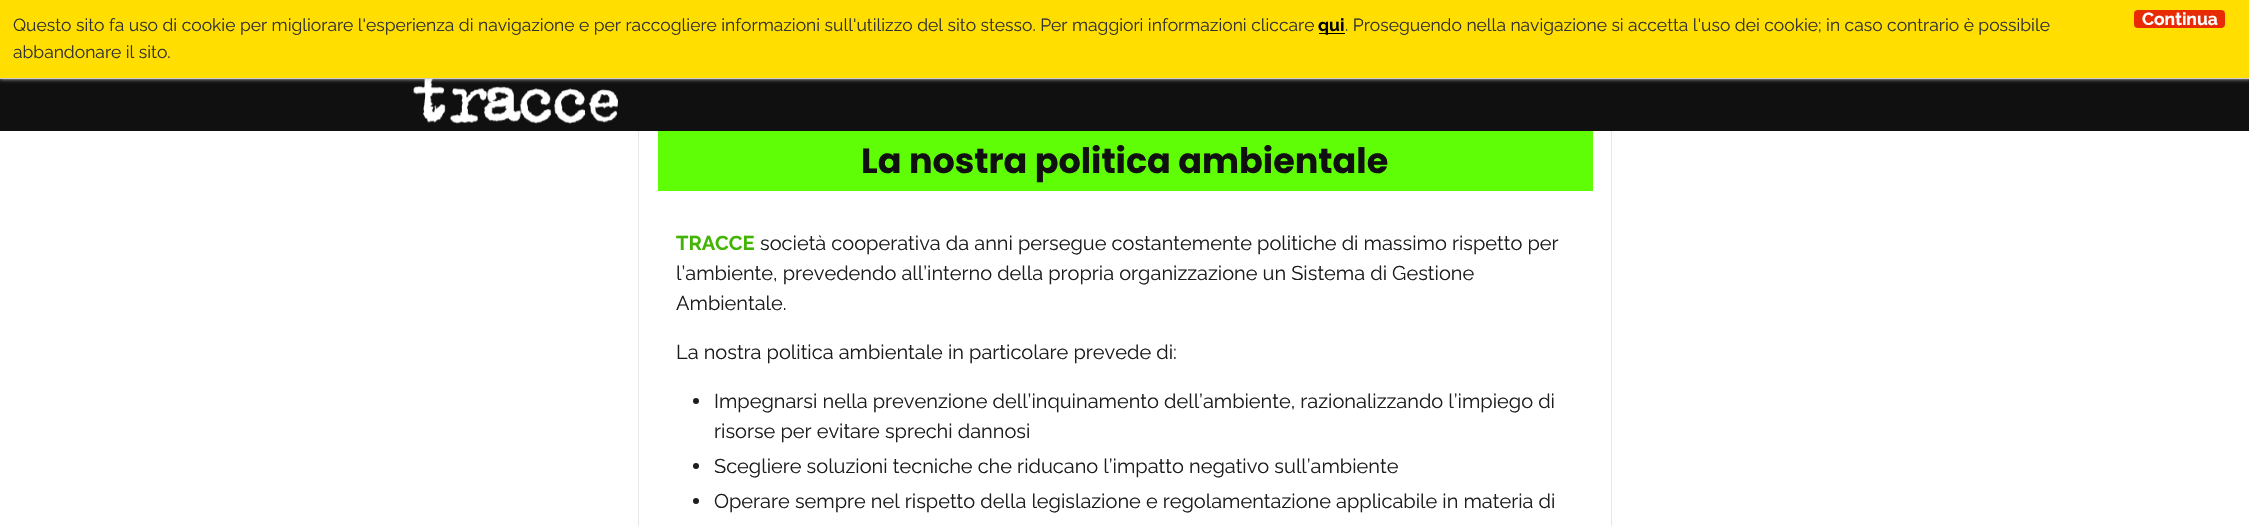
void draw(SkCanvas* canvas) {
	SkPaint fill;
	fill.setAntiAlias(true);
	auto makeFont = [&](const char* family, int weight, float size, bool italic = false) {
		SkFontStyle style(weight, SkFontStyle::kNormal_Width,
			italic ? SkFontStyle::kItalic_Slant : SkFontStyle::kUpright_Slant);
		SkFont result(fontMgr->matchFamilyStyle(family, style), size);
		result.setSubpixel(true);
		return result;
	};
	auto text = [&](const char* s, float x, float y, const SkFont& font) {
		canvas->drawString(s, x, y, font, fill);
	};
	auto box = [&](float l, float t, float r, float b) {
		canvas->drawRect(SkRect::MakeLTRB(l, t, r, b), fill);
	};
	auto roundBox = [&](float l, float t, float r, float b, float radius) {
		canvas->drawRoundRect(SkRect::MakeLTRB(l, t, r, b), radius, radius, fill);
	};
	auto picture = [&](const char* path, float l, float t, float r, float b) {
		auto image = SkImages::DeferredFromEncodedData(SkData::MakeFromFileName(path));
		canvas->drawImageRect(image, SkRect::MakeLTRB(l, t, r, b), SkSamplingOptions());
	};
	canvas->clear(0xFFFFFFFF);
	fill.setColor(0xFF101010);
	box(0, 79, 2249, 131);
	picture("image0.png", 413, 79, 618, 124);
	fill.setColor(0xFFCCCCCC);
	fill.setMaskFilter(SkMaskFilter::MakeBlur(kNormal_SkBlurStyle, 2));
	canvas->drawRect(SkRect::MakeLTRB(0, 0, 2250, 79), fill);
	fill.setMaskFilter(nullptr);
	fill.setColor(0xFFFFDE00);
	box(0, 0, 2249, 78);
	fill.setColor(0xFFCCCCCC);
	box(0, 78, 2249, 79);
	fill.setColor(0xFF000000);
	box(1319, 33, 1345, 34);
	fill.setColor(0xFFE82B05);
	roundBox(2134, 10, 2225, 28, 4);
	fill.setColor(0xFFE6E6E6);
	canvas->drawPath(SkPathBuilder().moveTo(1612, 131).lineTo(1612, 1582).lineTo(1611, 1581).lineTo(1611, 131).close().detach(), fill);
	canvas->drawPath(SkPathBuilder().moveTo(638, 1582).lineTo(638, 131).lineTo(639, 131).lineTo(639, 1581).close().detach(), fill);
	fill.setColor(0xFF5FFE07);
	box(658, 131, 1593, 191);
	fill.setColor(0xFF1D1D1D);
	canvas->drawCircle(696, 401, 3, fill);
	canvas->drawCircle(696, 466, 3, fill);
	canvas->drawCircle(696, 501, 3, fill);
	auto font1 = makeFont("Raleway", 400, 17.5f);
	fill.setColor(0xFF333333);
	text("Questo sito fa uso di cookie per migliorare l'esperienza di navigazione e per raccogliere informazioni sull'utilizzo del sito stesso. Per maggiori informazioni cliccare", 13, 31, font1);
	auto font2 = makeFont("Raleway", 700, 17.5f);
	fill.setColor(0xFF000000);
	text("qui", 1318, 31, font2);
	fill.setColor(0xFF333333);
	text(". Proseguendo nella navigazione si accetta l'uso dei cookie; in caso contrario è possibile", 1345, 31, font1);
	text("abbandonare il sito.", 13, 58, font1);
	fill.setColor(0xFFFFFFFF);
	text("Continua", 2142, 25, font2);
	auto font3 = makeFont("Poppins", 700, 35);
	fill.setColor(0xFF101010);
	text("La nostra politica ambientale", 861, 173, font3);
	auto font4 = makeFont("Raleway", 700, 20);
	fill.setColor(0xFF42B403);
	text("TRACCE", 676, 250, font4);
	auto font5 = makeFont("Raleway", 400, 20);
	fill.setColor(0xFF1D1D1D);
	text("società cooperativa da anni persegue costantemente politiche di massimo rispetto per", 760, 250, font5);
	text("l’ambiente, prevedendo all’interno della propria organizzazione un Sistema di Gestione", 676, 280, font5);
	text("Ambientale.", 676, 310, font5);
	text("La nostra politica ambientale in particolare prevede di:", 676, 359, font5);
	text("Impegnarsi nella prevenzione dell’inquinamento dell’ambiente, razionalizzando l’impiego di", 714, 408, font5);
	text("risorse per evitare sprechi dannosi", 714, 438, font5);
	text("Scegliere soluzioni tecniche che riducano l’impatto negativo sull’ambiente", 714, 473, font5);
	text("Operare sempre nel rispetto della legislazione e regolamentazione applicabile in materia di", 714, 508, font5);
}
